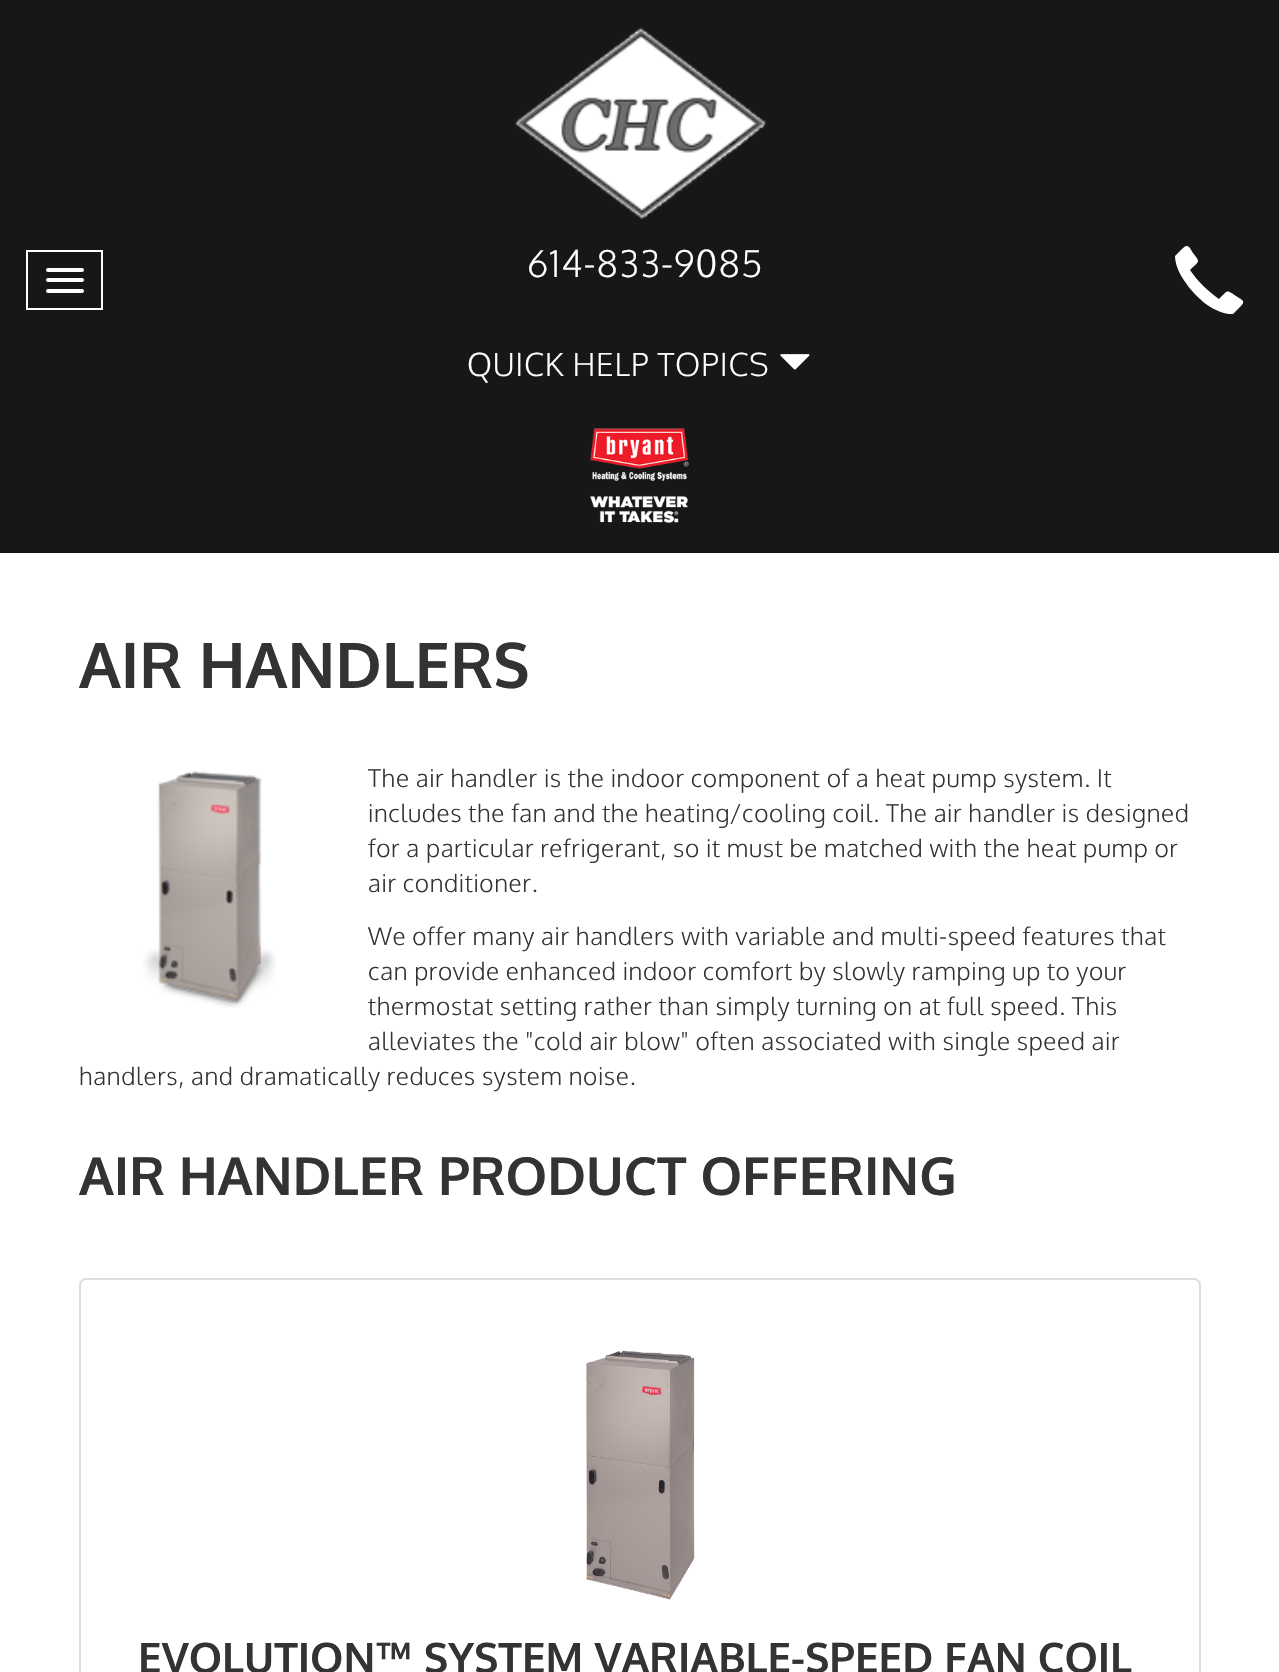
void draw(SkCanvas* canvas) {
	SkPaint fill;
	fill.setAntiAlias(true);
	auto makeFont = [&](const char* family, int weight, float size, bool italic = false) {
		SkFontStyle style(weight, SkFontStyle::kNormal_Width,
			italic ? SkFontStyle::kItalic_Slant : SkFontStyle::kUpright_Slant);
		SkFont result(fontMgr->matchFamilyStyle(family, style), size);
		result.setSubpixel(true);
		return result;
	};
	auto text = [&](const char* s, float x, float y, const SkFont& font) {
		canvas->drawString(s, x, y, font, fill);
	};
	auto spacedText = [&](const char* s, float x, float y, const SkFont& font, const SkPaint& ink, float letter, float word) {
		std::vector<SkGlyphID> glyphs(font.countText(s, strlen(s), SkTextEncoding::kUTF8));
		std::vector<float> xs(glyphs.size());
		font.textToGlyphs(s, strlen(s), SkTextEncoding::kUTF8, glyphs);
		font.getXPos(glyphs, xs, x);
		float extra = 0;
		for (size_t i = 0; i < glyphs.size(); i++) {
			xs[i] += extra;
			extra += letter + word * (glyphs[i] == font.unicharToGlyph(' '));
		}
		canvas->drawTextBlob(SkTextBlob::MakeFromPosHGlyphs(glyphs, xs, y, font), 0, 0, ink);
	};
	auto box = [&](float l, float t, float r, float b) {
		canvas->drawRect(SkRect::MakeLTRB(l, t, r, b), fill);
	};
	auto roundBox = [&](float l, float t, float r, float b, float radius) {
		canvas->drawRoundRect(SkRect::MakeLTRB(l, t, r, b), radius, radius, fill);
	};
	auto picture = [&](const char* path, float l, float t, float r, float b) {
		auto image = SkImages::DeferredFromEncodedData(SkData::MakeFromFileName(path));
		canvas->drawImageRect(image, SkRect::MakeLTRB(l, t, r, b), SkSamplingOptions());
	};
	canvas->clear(0xFF171717);
	picture("image0.png", 515, 27, 767, 219);
	fill.setStyle(SkPaint::kStroke_Style);
	fill.setStrokeWidth(2);
	fill.setColor(0xFFFFFFFF);
	canvas->drawRect(SkRect::MakeLTRB(27, 251, 102, 309), fill);
	fill.setStyle(SkPaint::kFill_Style);
	roundBox(46, 268, 84, 272, 2);
	roundBox(46, 278, 84, 282, 2);
	roundBox(46, 289, 84, 293, 2);
	canvas->drawPath(SkPathBuilder().moveTo(1175, 256).lineTo(1183, 248).cubicTo(1188, 243, 1190, 248, 1193, 253).cubicTo(1201, 263, 1199, 261, 1190, 270).cubicTo(1198, 282, 1208, 291, 1219, 299).cubicTo(1228, 290, 1226, 289, 1236, 296).cubicTo(1244, 301, 1246, 301, 1239, 308).lineTo(1233, 314).lineTo(1229, 314).cubicTo(1213, 312, 1198, 299, 1188, 286).cubicTo(1182, 278, 1175, 267, 1175, 256).close().detach(), fill);
	picture("image1.png", 780, 354, 810, 370);
	picture("image2.png", 590, 428, 689, 524);
	box(0, 553, 1279, 1672);
	picture("image3.png", 143, 771, 276, 1008);
	fill.setStyle(SkPaint::kStroke_Style);
	fill.setColor(0xFFDDDDDD);
	canvas->drawRoundRect(SkRect::MakeLTRB(80, 1279, 1200, 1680), 6, 6, fill);
	picture("image4.png", 586, 1350, 695, 1600);
	auto font1 = makeFont("Oxygen", 300, 36.75f);
	fill.setStyle(SkPaint::kFill_Style);
	fill.setColor(0xFFFFFFFF);
	spacedText("614-833-9085", 527, 277, font1, fill, 1, 0);
	auto font2 = makeFont("Oxygen", 300, 31.75f);
	spacedText("QUICK HELP TOPICS", 467, 376, font2, fill, 0.75f, 0);
	auto font3 = makeFont("Oxygen", 700, 63);
	fill.setColor(0xFF333333);
	text("AIR HANDLERS", 79, 688, font3);
	auto font4 = makeFont("Oxygen", 300, 24.5f);
	spacedText("The air handler is the indoor component of a heat pump system. It", 368, 787, font4, fill, 0.6f, 0);
	spacedText("includes the fan and the heating/cooling coil. The air handler is designed", 368, 822, font4, fill, 0.6f, 0);
	spacedText("for a particular refrigerant, so it must be matched with the heat pump or", 368, 857, font4, fill, 0.6f, 0);
	spacedText("air conditioner.", 368, 892, font4, fill, 0.6f, 0);
	spacedText("We offer many air handlers with variable and multi-speed features that", 368, 945, font4, fill, 0.6f, 0);
	spacedText("can provide enhanced indoor comfort by slowly ramping up to your", 368, 980, font4, fill, 0.6f, 0);
	spacedText("thermostat setting rather than simply turning on at full speed. This", 368, 1015, font4, fill, 0.6f, 0);
	spacedText("alleviates the \"cold air blow\" often associated with single speed air", 368, 1050, font4, fill, 0.6f, 0);
	spacedText("handlers, and dramatically reduces system noise.", 79, 1085, font4, fill, 0.6f, 0);
	auto font5 = makeFont("Oxygen", 700, 52.5f);
	text("AIR HANDLER PRODUCT OFFERING", 79, 1195, font5);
	auto font6 = makeFont("Oxygen", 700, 42);
	text("EVOLUTION™ SYSTEM VARIABLE-SPEED FAN COIL", 138, 1673, font6);
}
